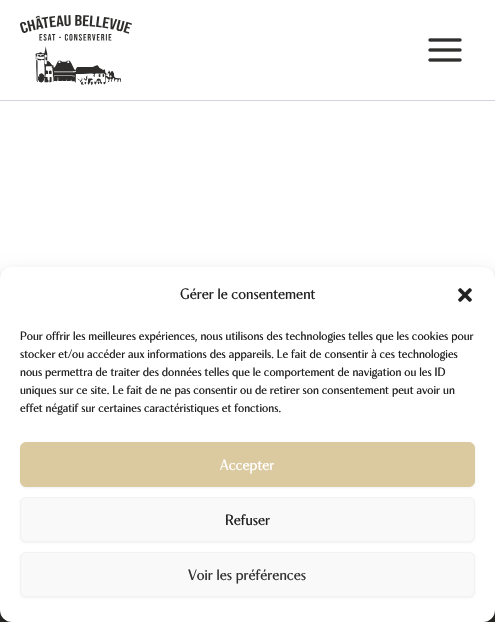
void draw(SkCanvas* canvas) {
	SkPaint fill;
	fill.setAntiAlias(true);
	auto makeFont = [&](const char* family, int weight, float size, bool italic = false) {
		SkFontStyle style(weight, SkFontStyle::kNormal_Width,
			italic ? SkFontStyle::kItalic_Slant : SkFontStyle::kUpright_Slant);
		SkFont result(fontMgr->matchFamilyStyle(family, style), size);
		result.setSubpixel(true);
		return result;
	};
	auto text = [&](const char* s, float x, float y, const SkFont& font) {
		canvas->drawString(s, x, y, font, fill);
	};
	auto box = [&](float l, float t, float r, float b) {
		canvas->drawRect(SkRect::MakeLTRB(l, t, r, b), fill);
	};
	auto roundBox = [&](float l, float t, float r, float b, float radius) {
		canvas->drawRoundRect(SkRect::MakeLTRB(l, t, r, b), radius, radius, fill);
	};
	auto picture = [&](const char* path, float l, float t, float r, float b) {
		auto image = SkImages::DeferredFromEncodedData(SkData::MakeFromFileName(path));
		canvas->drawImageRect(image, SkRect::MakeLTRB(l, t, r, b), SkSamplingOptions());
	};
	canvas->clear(0xFFFFFFFF);
	fill.setColor(0xFFD1D5DB);
	box(0, 100, 495, 101);
	picture("image0.png", 20, 15, 132, 85);
	picture("image1.png", 428, 38, 462, 62);
	fill.setColor(0xFF2F2F2D);
	box(0, 610, 495, 622);
	fill.setColor(0x3B000000);
	fill.setMaskFilter(SkMaskFilter::MakeBlur(kNormal_SkBlurStyle, 3));
	canvas->drawRoundRect(SkRect::MakeLTRB(0, 273, 495, 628), 12, 12, fill);
	fill.setMaskFilter(nullptr);
	fill.setColor(0x30000000);
	fill.setMaskFilter(SkMaskFilter::MakeBlur(kNormal_SkBlurStyle, 10));
	canvas->drawRoundRect(SkRect::MakeLTRB(0, 277, 495, 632), 12, 12, fill);
	fill.setMaskFilter(nullptr);
	fill.setColor(0xFFFFFFFF);
	roundBox(0, 267, 495, 622, 12);
	picture("image2.png", 458, 288, 472, 302);
	fill.setColor(0x0D000000);
	fill.setMaskFilter(SkMaskFilter::MakeBlur(kNormal_SkBlurStyle, 1));
	canvas->drawRoundRect(SkRect::MakeLTRB(20, 443, 475, 488), 6, 6, fill);
	fill.setMaskFilter(nullptr);
	fill.setColor(0xFFDBCAA0);
	canvas->drawRoundRect(SkRect::MakeLTRB(20.5f, 442.5f, 474.5f, 486.5f), 5.5f, 5.5f, fill);
	fill.setStyle(SkPaint::kStroke_Style);
	fill.setStrokeWidth(1);
	canvas->drawRoundRect(SkRect::MakeLTRB(20.5f, 442.5f, 474.5f, 486.5f), 5.5f, 5.5f, fill);
	fill.setStyle(SkPaint::kFill_Style);
	fill.setColor(0x0D000000);
	fill.setMaskFilter(SkMaskFilter::MakeBlur(kNormal_SkBlurStyle, 1));
	canvas->drawRoundRect(SkRect::MakeLTRB(20, 498, 475, 543), 6, 6, fill);
	fill.setMaskFilter(nullptr);
	fill.setColor(0xFFF9F9F9);
	canvas->drawRoundRect(SkRect::MakeLTRB(20.5f, 497.5f, 474.5f, 541.5f), 5.5f, 5.5f, fill);
	fill.setStyle(SkPaint::kStroke_Style);
	fill.setColor(0xFFF2F2F2);
	canvas->drawRoundRect(SkRect::MakeLTRB(20.5f, 497.5f, 474.5f, 541.5f), 5.5f, 5.5f, fill);
	fill.setStyle(SkPaint::kFill_Style);
	fill.setColor(0x0D000000);
	fill.setMaskFilter(SkMaskFilter::MakeBlur(kNormal_SkBlurStyle, 1));
	canvas->drawRoundRect(SkRect::MakeLTRB(20, 553, 475, 598), 6, 6, fill);
	fill.setMaskFilter(nullptr);
	fill.setColor(0xFFF9F9F9);
	canvas->drawRoundRect(SkRect::MakeLTRB(20.5f, 552.5f, 474.5f, 596.5f), 5.5f, 5.5f, fill);
	fill.setStyle(SkPaint::kStroke_Style);
	fill.setColor(0xFFF2F2F2);
	canvas->drawRoundRect(SkRect::MakeLTRB(20.5f, 552.5f, 474.5f, 596.5f), 5.5f, 5.5f, fill);
	auto font1 = makeFont("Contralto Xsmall", 400, 15);
	fill.setStyle(SkPaint::kFill_Style);
	fill.setColor(0xFF222222);
	text("Gérer le consentement", 180, 299, font1);
	auto font2 = makeFont("Contralto Xsmall", 400, 12);
	text("Pour offrir les meilleures expériences, nous utilisons des technologies telles que les cookies pour", 20, 340, font2);
	text("stocker et/ou accéder aux informations des appareils. Le fait de consentir à ces technologies", 20, 358, font2);
	text("nous permettra de traiter des données telles que le comportement de navigation ou les ID", 20, 376, font2);
	text("uniques sur ce site. Le fait de ne pas consentir ou de retirer son consentement peut avoir un", 20, 394, font2);
	text("effet négatif sur certaines caractéristiques et fonctions.", 20, 412, font2);
	fill.setColor(0xFFFFFFFF);
	text("Accepter", 220, 470, font1);
	fill.setColor(0xFF222222);
	text("Refuser", 225, 525, font1);
	fill.setColor(0xFF333333);
	text("Voir les préférences", 188, 580, font1);
}
